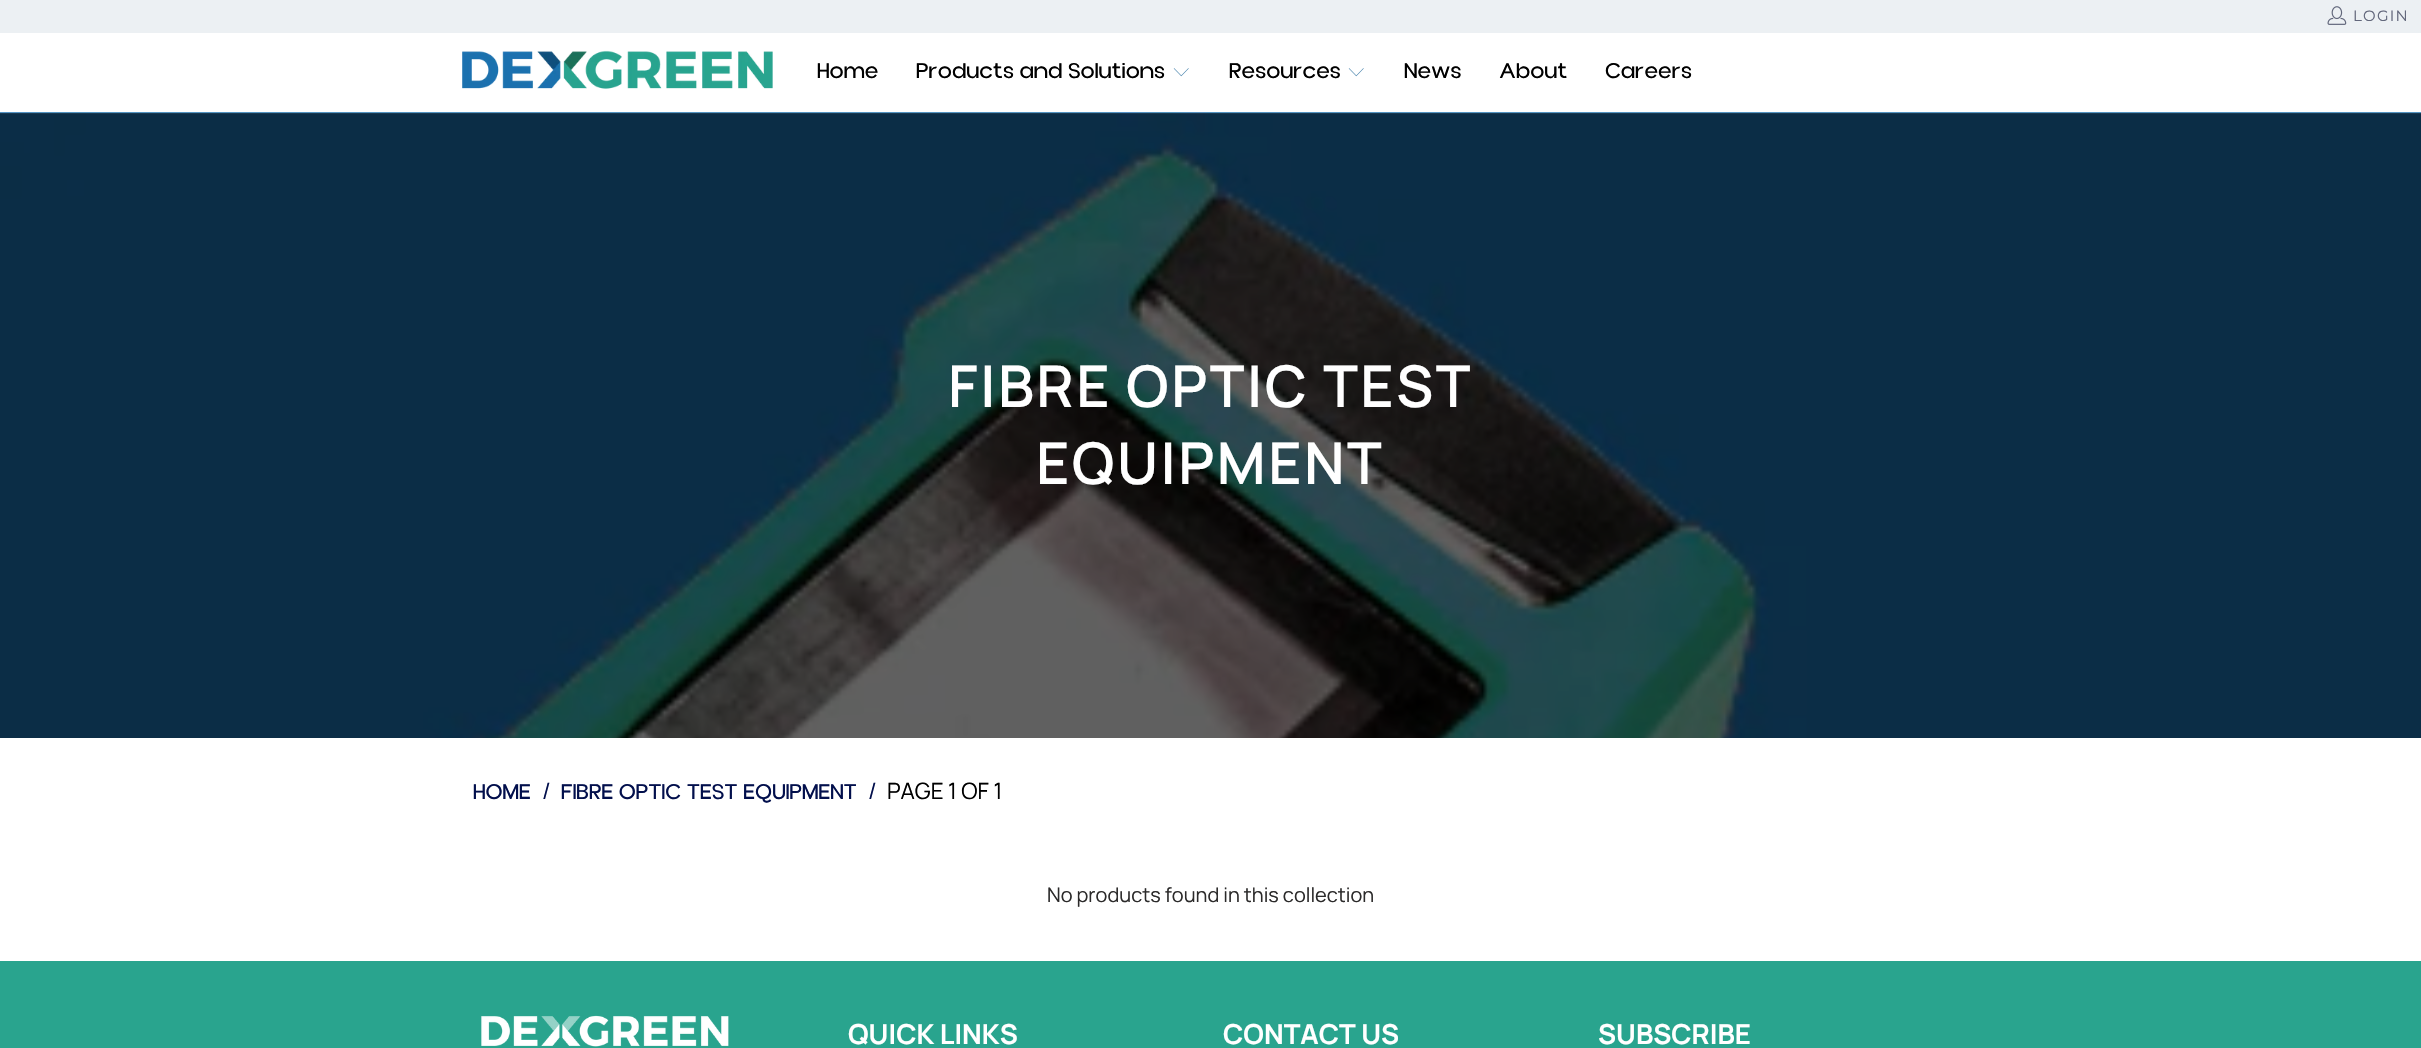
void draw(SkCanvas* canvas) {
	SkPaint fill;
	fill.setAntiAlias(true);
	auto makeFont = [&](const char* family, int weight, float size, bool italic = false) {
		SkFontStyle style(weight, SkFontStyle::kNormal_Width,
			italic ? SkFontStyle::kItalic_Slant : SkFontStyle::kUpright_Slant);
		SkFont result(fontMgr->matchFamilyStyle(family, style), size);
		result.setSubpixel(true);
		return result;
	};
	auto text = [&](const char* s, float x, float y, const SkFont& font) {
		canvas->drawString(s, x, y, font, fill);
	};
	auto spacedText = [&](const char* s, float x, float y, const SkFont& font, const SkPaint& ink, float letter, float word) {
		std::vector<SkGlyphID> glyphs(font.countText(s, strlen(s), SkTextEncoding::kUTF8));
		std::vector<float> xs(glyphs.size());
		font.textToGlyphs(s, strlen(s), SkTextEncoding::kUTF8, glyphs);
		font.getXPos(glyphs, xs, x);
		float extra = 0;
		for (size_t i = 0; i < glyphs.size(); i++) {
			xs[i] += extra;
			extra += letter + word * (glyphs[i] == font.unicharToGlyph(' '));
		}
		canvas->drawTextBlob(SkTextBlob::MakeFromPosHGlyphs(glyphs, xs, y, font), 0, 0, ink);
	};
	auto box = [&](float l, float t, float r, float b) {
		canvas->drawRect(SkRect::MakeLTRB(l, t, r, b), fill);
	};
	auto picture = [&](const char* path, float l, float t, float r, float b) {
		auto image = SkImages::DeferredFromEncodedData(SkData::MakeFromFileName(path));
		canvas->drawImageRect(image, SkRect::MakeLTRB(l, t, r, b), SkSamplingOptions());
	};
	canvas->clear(0xFFFFFFFF);
	fill.setColor(0xFFECF0F3);
	box(0, 0, 2421, 33);
	picture("image0.png", 2327, 6, 2347, 25);
	picture("image1.png", 462, 50, 773, 89);
	picture("image2.png", 1173, 68, 1189, 77);
	picture("image2.png", 1348, 68, 1364, 77);
	picture("image3.png", 0, 112, 2421, 738);
	fill.setColor(0xFF29A48E);
	box(0, 961, 2421, 1048);
	picture("image4.png", 481, 1015, 729, 1047);
	auto font1 = makeFont("Montserrat", 400, 15);
	fill.setColor(0xFF62677B);
	spacedText("LOGIN", 2353, 21, font1, fill, 1.25f, 0);
	auto font2 = makeFont("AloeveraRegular", 400, 22.5f);
	fill.setColor(0xFF000000);
	text("Home", 817, 78, font2);
	text("Products and Solutions", 916, 78, font2);
	text("Resources", 1229, 78, font2);
	text("News", 1404, 78, font2);
	text("About", 1499, 78, font2);
	text("Careers", 1605, 78, font2);
	auto font3 = makeFont("Manrope", 600, 57.5f);
	fill.setColor(0xFFFFFFFF);
	spacedText("FIBRE OPTIC TEST", 948, 407, font3, fill, 2.5f, 0);
	spacedText("EQUIPMENT", 1036, 484, font3, fill, 2.5f, 0);
	fill.setColor(0xFF020F4C);
	text("HOME", 473, 799, font2);
	auto font4 = makeFont("Manrope", 400, 22.5f);
	text("/", 542, 799, font4);
	text("FIBRE OPTIC TEST EQUIPMENT", 561, 799, font2);
	text("/", 868, 799, font4);
	fill.setColor(0xFF000000);
	text("PAGE 1 OF 1", 887, 799, font4);
	auto font5 = makeFont("Manrope", 400, 20);
	fill.setColor(0xFF2B2A2A);
	text("No products found in this collection", 1047, 902, font5);
	auto font6 = makeFont("Manrope", 700, 27.5f);
	fill.setColor(0xFFFFFFFF);
	text("QUICK LINKS", 848, 1044, font6);
	text("CONTACT US", 1223, 1044, font6);
	text("SUBSCRIBE", 1598, 1044, font6);
}
